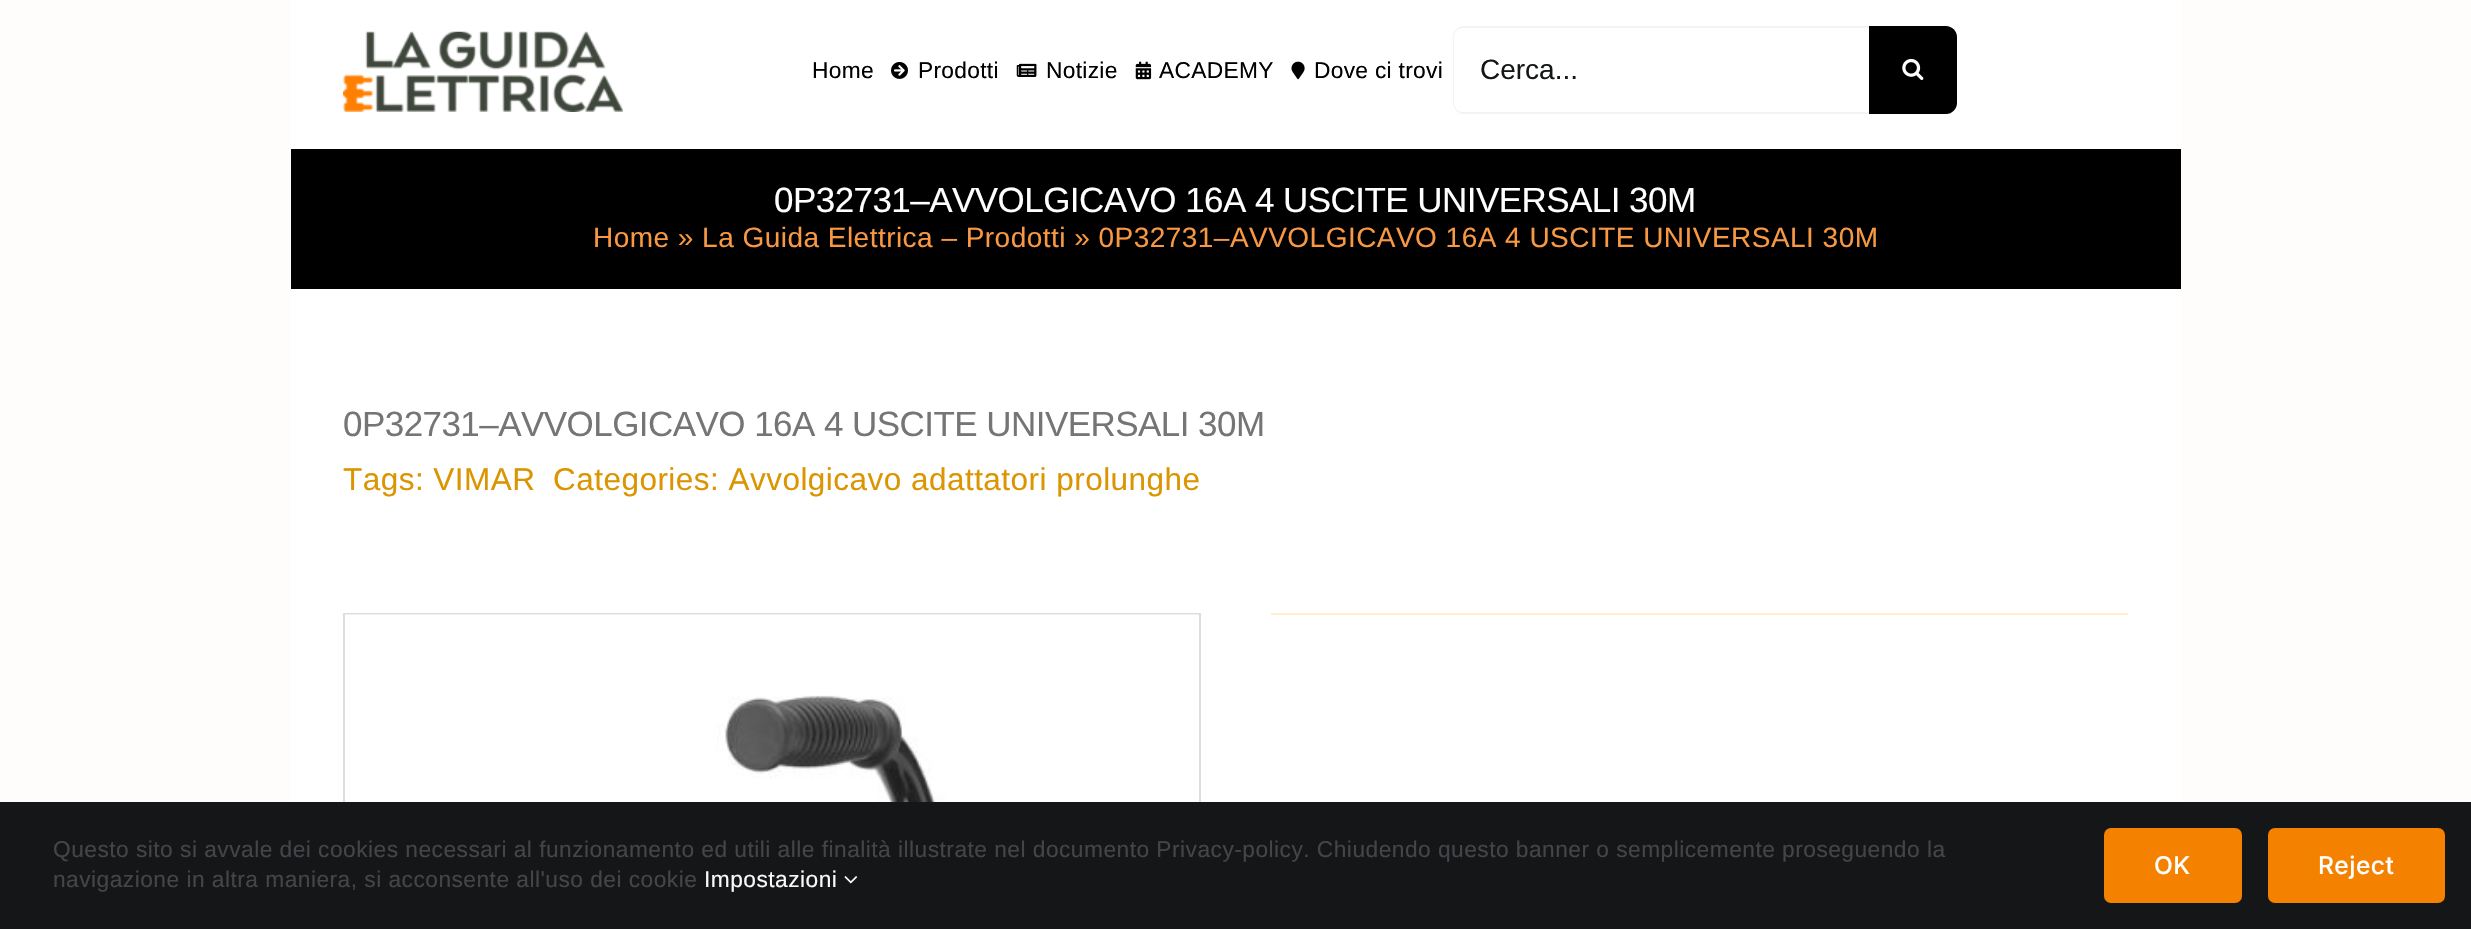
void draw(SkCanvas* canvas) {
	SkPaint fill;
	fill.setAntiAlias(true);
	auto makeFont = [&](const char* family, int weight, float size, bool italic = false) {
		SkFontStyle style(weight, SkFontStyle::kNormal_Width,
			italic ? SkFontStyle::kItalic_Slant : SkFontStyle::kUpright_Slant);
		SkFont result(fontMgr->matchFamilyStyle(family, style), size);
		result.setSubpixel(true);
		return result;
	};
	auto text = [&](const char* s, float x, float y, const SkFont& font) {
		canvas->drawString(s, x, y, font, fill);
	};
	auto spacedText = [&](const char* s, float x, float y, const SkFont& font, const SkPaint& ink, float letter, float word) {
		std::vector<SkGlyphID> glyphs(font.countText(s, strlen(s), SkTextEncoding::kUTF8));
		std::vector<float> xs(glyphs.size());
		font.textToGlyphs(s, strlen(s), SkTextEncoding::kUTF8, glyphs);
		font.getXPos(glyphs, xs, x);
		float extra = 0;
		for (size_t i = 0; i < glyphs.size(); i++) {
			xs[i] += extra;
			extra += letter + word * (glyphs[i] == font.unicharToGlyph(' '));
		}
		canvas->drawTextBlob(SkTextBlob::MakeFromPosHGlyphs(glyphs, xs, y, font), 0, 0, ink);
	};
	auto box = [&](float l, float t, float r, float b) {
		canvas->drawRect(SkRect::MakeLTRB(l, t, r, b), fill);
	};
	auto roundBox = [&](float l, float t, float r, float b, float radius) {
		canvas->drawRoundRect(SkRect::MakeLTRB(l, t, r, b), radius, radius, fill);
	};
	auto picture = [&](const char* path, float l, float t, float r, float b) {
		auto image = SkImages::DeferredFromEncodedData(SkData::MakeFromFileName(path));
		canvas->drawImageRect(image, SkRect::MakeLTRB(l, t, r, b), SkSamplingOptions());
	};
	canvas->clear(0xFFFFFCFC);
	fill.setColor(0xFFFFFFFF);
	box(291, 0, 2181, 149);
	picture("image0.png", 343, 31, 623, 112);
	picture("image1.png", 891, 62, 908, 79);
	picture("image2.png", 1016, 63, 1037, 77);
	picture("image3.png", 1135, 61, 1152, 80);
	picture("image4.png", 1291, 61, 1305, 80);
	fill.setColor(0xFFF2F3F5);
	canvas->drawPath(SkPathBuilder().moveTo(1463, 28).lineTo(1869, 28).lineTo(1869, 26).lineTo(1464, 26).cubicTo(1458, 26, 1453, 31, 1453, 37).lineTo(1453, 103).cubicTo(1453, 109, 1458, 114, 1464, 114).lineTo(1869, 114).lineTo(1869, 112).lineTo(1463, 112).cubicTo(1458, 112, 1454, 108, 1454, 103).lineTo(1454, 37).cubicTo(1454, 32, 1458, 28, 1463, 28).close().detach(), fill);
	fill.setColor(0xFF000000);
	canvas->drawPath(SkPathBuilder().moveTo(1869, 26).lineTo(1946, 26).cubicTo(1952, 26, 1957, 31, 1957, 37).lineTo(1957, 103).cubicTo(1957, 109, 1952, 114, 1946, 114).lineTo(1869, 114).close().detach(), fill);
	picture("image5.png", 1902, 58, 1924, 80);
	box(291, 149, 2181, 289);
	fill.setColor(0xFFFFFFFF);
	box(291, 289, 2181, 802);
	fill.setStyle(SkPaint::kStroke_Style);
	fill.setStrokeWidth(2);
	fill.setColor(0xFFDDDDDD);
	canvas->drawRect(SkRect::MakeLTRB(344, 614, 1200, 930), fill);
	picture("image6.png", 345, 614, 1199, 802);
	fill.setStyle(SkPaint::kFill_Style);
	fill.setColor(0xFFFFEFD0);
	box(1271, 613, 2128, 615);
	fill.setColor(0xFF141617);
	box(0, 802, 2471, 929);
	picture("image7.png", 844, 876, 858, 884);
	fill.setColor(0xFFF48200);
	roundBox(2104, 828, 2242, 903, 7);
	roundBox(2268, 828, 2445, 903, 7);
	auto font1 = makeFont("Liberation Sans", 400, 22.75f);
	fill.setColor(0xFF000000);
	spacedText("Home", 812, 78, font1, fill, 0.3f, 0);
	spacedText("Prodotti", 918, 78, font1, fill, 0.3f, 0);
	spacedText("Notizie", 1046, 78, font1, fill, 0.3f, 0);
	spacedText("ACADEMY", 1159, 78, font1, fill, 0.3f, 0);
	spacedText("Dove ci trovi", 1314, 78, font1, fill, 0.3f, 0);
	auto font2 = makeFont("Liberation Sans", 400, 28);
	fill.setColor(0xFF141617);
	text("Cerca...", 1480, 79, font2);
	auto font3 = makeFont("Liberation Sans", 400, 35);
	fill.setColor(0xFFFFFFFF);
	spacedText("0P32731–AVVOLGICAVO 16A 4 USCITE UNIVERSALI 30M", 774, 212, font3, fill, -0.55f, 0);
	fill.setColor(0xFFF99843);
	spacedText("Home » La Guida Elettrica – Prodotti » 0P32731–AVVOLGICAVO 16A 4 USCITE UNIVERSALI 30M", 593, 247, font2, fill, 0.47f, 0);
	fill.setColor(0xFF757575);
	spacedText("0P32731–AVVOLGICAVO 16A 4 USCITE UNIVERSALI 30M", 343, 436, font3, fill, -0.55f, 0);
	auto font4 = makeFont("Liberation Sans", 400, 31.5f);
	fill.setColor(0xFFDB9500);
	spacedText("Tags: VIMAR", 343, 490, font4, fill, 0.47f, 0);
	spacedText("Categories: Avvolgicavo adattatori prolunghe", 553, 490, font4, fill, 0.47f, 0);
	fill.setColor(0xFF434549);
	spacedText("Questo sito si avvale dei cookies necessari al funzionamento ed utili alle finalità illustrate nel documento Privacy-policy. Chiudendo questo banner o semplicemente proseguendo la", 53, 857, font1, fill, 0.47f, 0);
	spacedText("navigazione in altra maniera, si acconsente all'uso dei cookie", 53, 887, font1, fill, 0.47f, 0);
	fill.setColor(0xFFF9F9FB);
	spacedText("Impostazioni", 704, 887, font1, fill, 0.47f, 0);
	auto font5 = makeFont("Inter", 500, 24.5f);
	fill.setColor(0xFFFFFFFF);
	spacedText("OK", 2154, 874, font5, fill, 0.5f, 0);
	spacedText("Reject", 2318, 874, font5, fill, 0.5f, 0);
}
